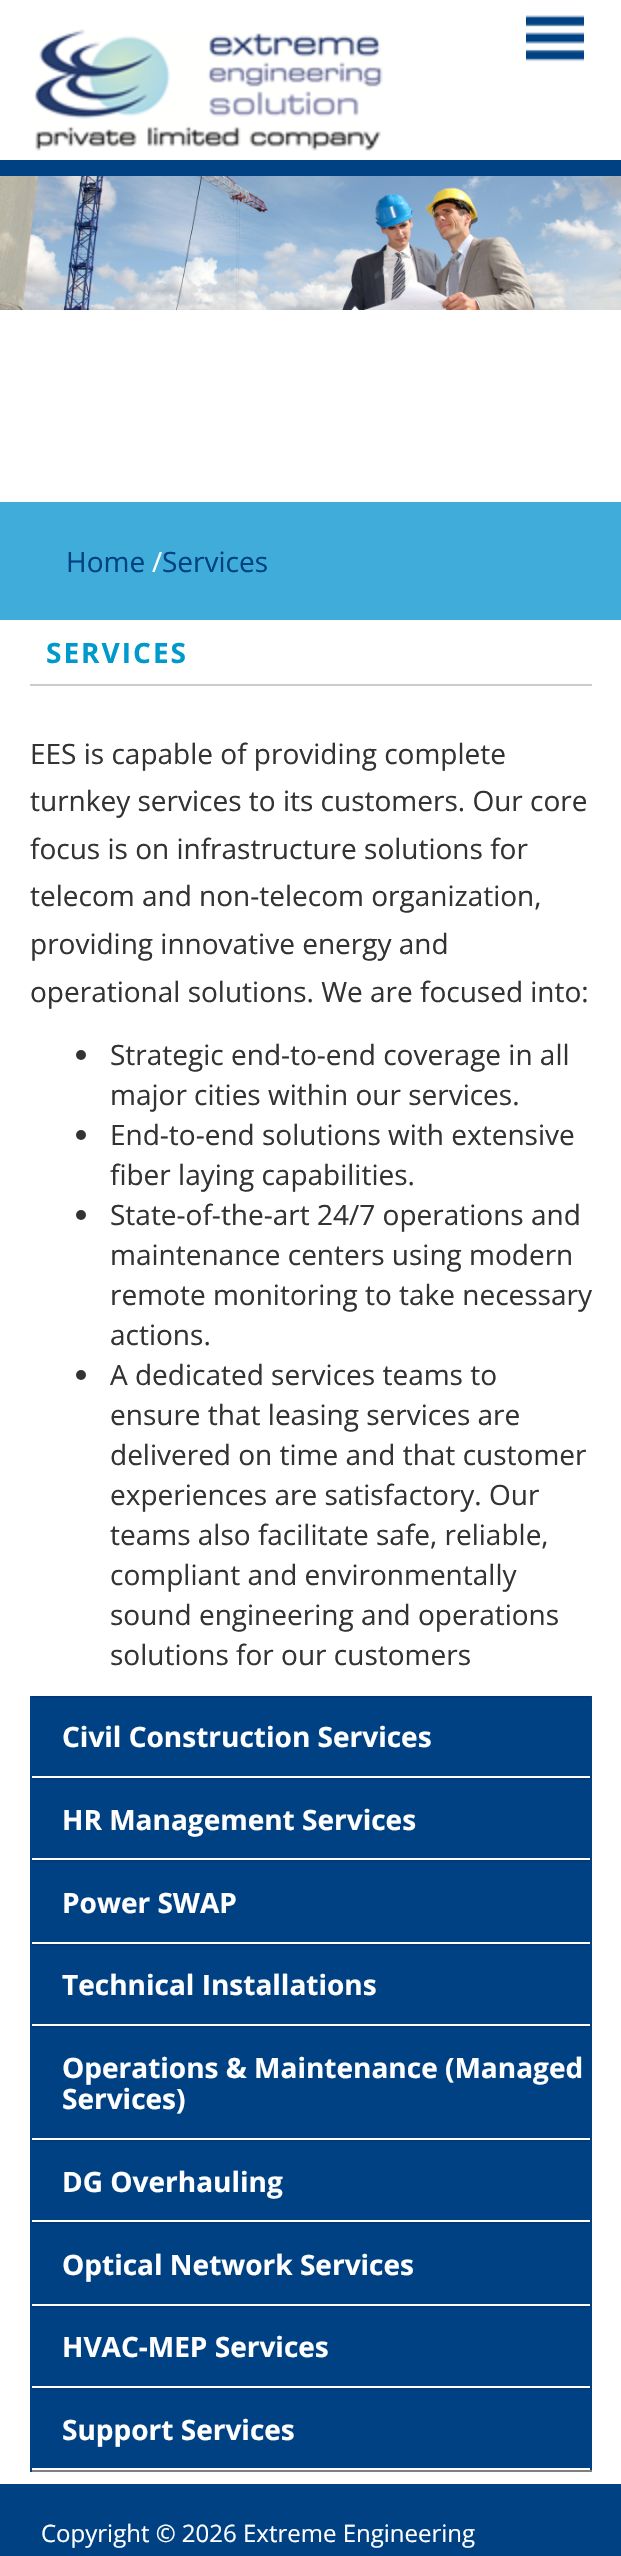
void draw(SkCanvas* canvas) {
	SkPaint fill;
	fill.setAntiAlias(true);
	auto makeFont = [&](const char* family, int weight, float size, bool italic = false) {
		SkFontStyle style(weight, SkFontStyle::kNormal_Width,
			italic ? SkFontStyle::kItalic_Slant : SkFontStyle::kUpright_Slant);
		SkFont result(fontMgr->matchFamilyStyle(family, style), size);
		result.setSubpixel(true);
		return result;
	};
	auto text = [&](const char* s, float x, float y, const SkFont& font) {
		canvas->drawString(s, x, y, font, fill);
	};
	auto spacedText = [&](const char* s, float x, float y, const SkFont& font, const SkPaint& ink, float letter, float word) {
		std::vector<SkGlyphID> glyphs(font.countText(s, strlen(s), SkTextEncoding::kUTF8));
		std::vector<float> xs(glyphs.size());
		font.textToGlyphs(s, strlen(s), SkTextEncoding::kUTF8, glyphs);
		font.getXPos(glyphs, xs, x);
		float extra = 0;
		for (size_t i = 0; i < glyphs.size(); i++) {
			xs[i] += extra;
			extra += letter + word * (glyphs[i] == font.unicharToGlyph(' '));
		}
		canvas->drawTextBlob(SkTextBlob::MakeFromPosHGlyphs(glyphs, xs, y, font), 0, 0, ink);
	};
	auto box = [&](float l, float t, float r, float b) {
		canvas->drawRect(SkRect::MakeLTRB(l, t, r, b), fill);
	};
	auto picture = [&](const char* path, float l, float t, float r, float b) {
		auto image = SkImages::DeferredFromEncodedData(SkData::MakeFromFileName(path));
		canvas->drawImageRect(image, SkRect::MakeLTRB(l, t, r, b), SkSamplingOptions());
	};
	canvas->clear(0xFFFFFFFF);
	fill.setColor(0xFF004183);
	box(0, 160, 621, 176);
	picture("image0.png", 34, 29, 383, 151);
	picture("image1.png", 526, 15, 584, 62);
	picture("image2.png", 0, 176, 621, 310);
	fill.setColor(0xFF3FACDA);
	box(0, 502, 621, 620);
	fill.setColor(0xFFCCCCCC);
	box(30, 684, 592, 686);
	fill.setColor(0xFF333333);
	canvas->drawCircle(81, 1055, 5, fill);
	canvas->drawCircle(81, 1135, 5, fill);
	canvas->drawCircle(81, 1215, 5, fill);
	canvas->drawCircle(81, 1375, 5, fill);
	fill.setColor(0xFF004183);
	box(590, 1696, 592, 2472);
	fill.setColor(0xFF808080);
	box(30, 2470, 592, 2472);
	fill.setColor(0xFF004183);
	box(30, 1696, 32, 2472);
	box(32, 1698, 590, 1776);
	fill.setColor(0xFF02397B);
	box(32, 1696, 590, 1698);
	fill.setColor(0xFF004183);
	box(32, 1780, 590, 1858);
	fill.setColor(0xFF02397B);
	box(32, 1778, 590, 1780);
	fill.setColor(0xFF004183);
	box(32, 1862, 590, 1942);
	fill.setColor(0xFF02397B);
	box(32, 1860, 590, 1862);
	fill.setColor(0xFF004183);
	box(32, 1946, 590, 2024);
	fill.setColor(0xFF02397B);
	box(32, 1944, 590, 1946);
	fill.setColor(0xFF004183);
	box(32, 2028, 590, 2138);
	fill.setColor(0xFF02397B);
	box(32, 2026, 590, 2028);
	fill.setColor(0xFF004183);
	box(32, 2142, 590, 2220);
	fill.setColor(0xFF02397B);
	box(32, 2140, 590, 2142);
	fill.setColor(0xFF004183);
	box(32, 2224, 590, 2304);
	fill.setColor(0xFF02397B);
	box(32, 2222, 590, 2224);
	fill.setColor(0xFF004183);
	box(32, 2308, 590, 2386);
	fill.setColor(0xFF02397B);
	box(32, 2306, 590, 2308);
	fill.setColor(0xFF004183);
	box(32, 2390, 590, 2468);
	fill.setColor(0xFF02397B);
	box(32, 2388, 590, 2390);
	fill.setColor(0xFF004183);
	box(0, 2484, 621, 2556);
	auto font1 = makeFont("Open Sans", 400, 28);
	text("Home", 66, 572, font1);
	fill.setColor(0xFFFFFFFF);
	text("/", 152, 572, font1);
	fill.setColor(0xFF004183);
	text("Services", 162, 572, font1);
	auto font2 = makeFont("Open Sans", 700, 28);
	fill.setColor(0xFF0099CC);
	spacedText("SERVICES", 46, 663, font2, fill, 2, 0);
	fill.setColor(0xFF333333);
	text("EES is capable of providing complete", 30, 764, font1);
	text("turnkey services to its customers. Our core", 30, 811, font1);
	text("focus is on infrastructure solutions for", 30, 859, font1);
	text("telecom and non-telecom organization,", 30, 906, font1);
	text("providing innovative energy and", 30, 954, font1);
	text("operational solutions. We are focused into:", 30, 1002, font1);
	text("Strategic end-to-end coverage in all", 110, 1065, font1);
	text("major cities within our services.", 110, 1105, font1);
	text("End-to-end solutions with extensive", 110, 1145, font1);
	text("fiber laying capabilities.", 110, 1185, font1);
	text("State-of-the-art 24/7 operations and", 110, 1225, font1);
	text("maintenance centers using modern", 110, 1265, font1);
	text("remote monitoring to take necessary", 110, 1305, font1);
	text("actions.", 110, 1345, font1);
	text("A dedicated services teams to", 110, 1385, font1);
	text("ensure that leasing services are", 110, 1425, font1);
	text("delivered on time and that customer", 110, 1465, font1);
	text("experiences are satisfactory. Our", 110, 1505, font1);
	text("teams also facilitate safe, reliable,", 110, 1545, font1);
	text("compliant and environmentally", 110, 1585, font1);
	text("sound engineering and operations", 110, 1625, font1);
	text("solutions for our customers", 110, 1665, font1);
	fill.setColor(0xFFFFFFFF);
	text("Civil Construction Services", 62, 1747, font2);
	text("HR Management Services", 62, 1830, font2);
	text("Power SWAP", 62, 1913, font2);
	text("Technical Installations", 62, 1995, font2);
	text("Operations & Maintenance (Managed", 62, 2078, font2);
	text("Services)", 62, 2109, font2);
	text("DG Overhauling", 62, 2192, font2);
	text("Optical Network Services", 62, 2275, font2);
	text("HVAC-MEP Services", 62, 2357, font2);
	text("Support Services", 62, 2440, font2);
	auto font3 = makeFont("Open Sans", 400, 24);
	text("Copyright © 2026 Extreme Engineering", 41, 2542, font3);
}
